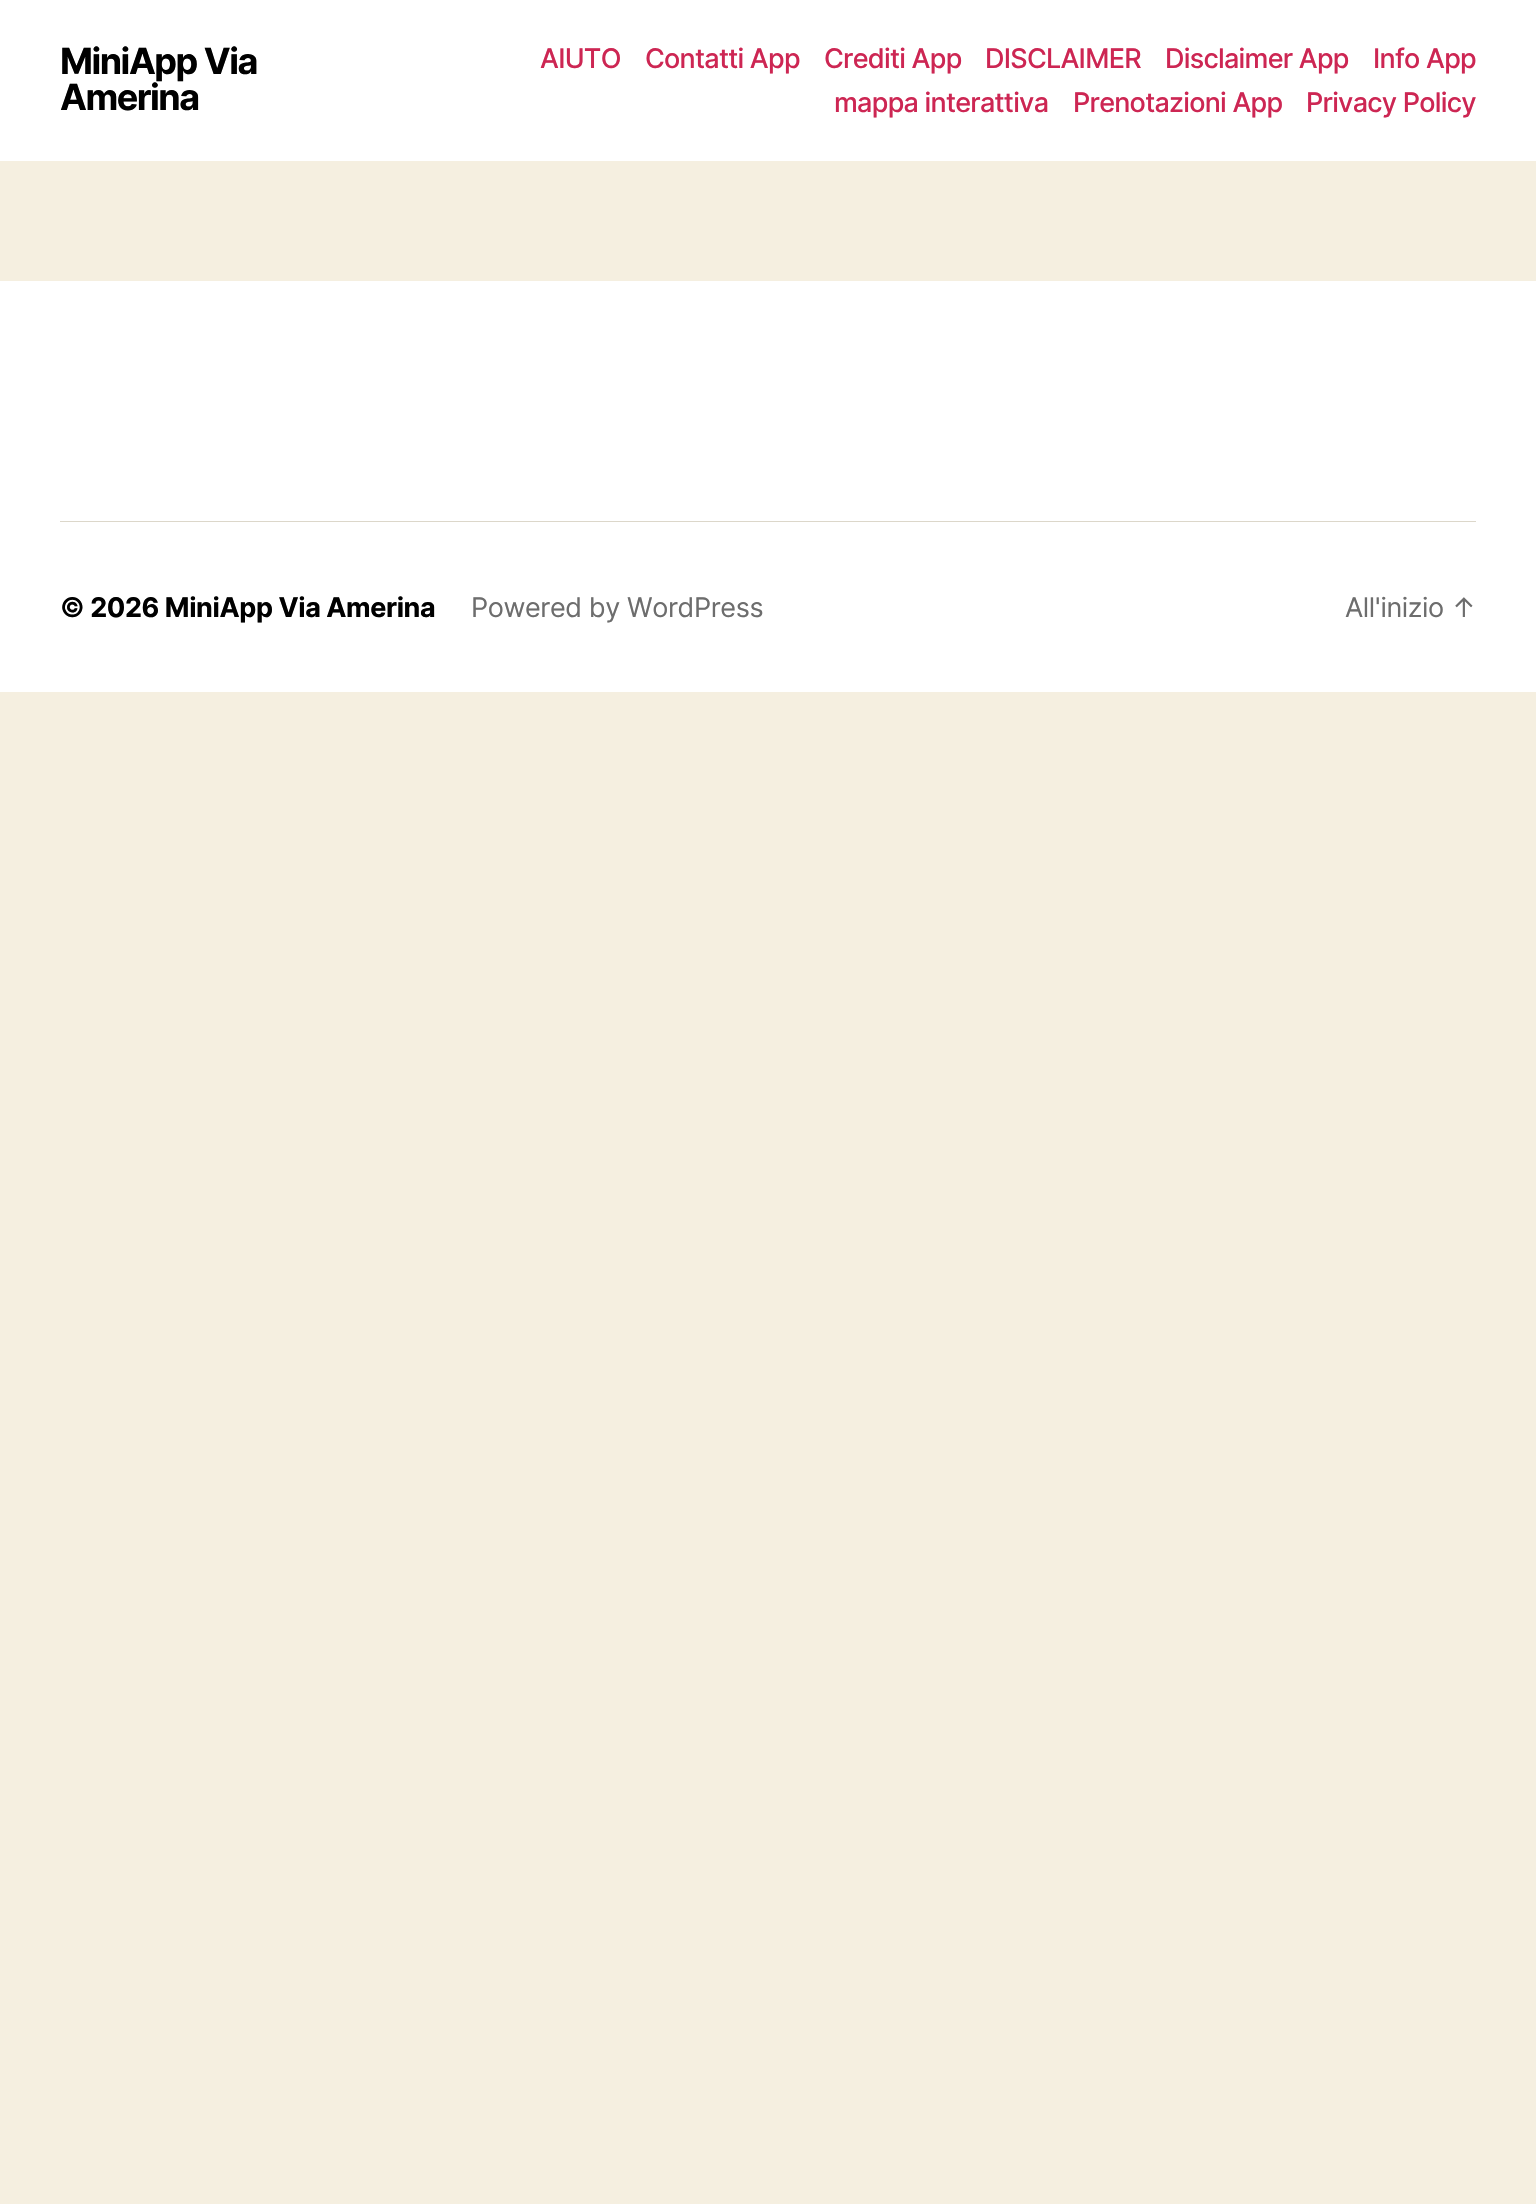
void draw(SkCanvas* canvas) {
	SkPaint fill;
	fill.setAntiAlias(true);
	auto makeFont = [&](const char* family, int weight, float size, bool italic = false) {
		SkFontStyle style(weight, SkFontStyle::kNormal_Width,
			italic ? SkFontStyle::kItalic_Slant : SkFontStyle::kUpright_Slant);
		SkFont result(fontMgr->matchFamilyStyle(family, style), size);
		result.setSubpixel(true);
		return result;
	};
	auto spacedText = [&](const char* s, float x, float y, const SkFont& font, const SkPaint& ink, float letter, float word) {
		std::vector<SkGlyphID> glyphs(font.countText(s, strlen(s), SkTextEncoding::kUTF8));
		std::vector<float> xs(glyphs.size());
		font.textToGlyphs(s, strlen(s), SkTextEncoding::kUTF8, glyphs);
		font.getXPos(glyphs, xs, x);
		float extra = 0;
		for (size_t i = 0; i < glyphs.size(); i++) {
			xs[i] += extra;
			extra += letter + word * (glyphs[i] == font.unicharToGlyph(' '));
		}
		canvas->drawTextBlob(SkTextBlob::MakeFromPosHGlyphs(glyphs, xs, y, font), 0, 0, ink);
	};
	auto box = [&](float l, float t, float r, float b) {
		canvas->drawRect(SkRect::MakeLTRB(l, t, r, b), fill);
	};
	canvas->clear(0xFFF5EFE0);
	fill.setColor(0xFFFFFFFF);
	box(0, 0, 1536, 161);
	box(0, 281, 1536, 692);
	fill.setColor(0xFFDCD7CA);
	box(60, 521, 1476, 522);
	auto font1 = makeFont("Inter", 700, 36);
	fill.setColor(0xFF000000);
	spacedText("MiniApp Via", 60, 74, font1, fill, -1.5f, 0);
	spacedText("Amerina", 60, 110, font1, fill, -1.5f, 0);
	auto font2 = makeFont("Inter", 500, 27);
	fill.setColor(0xFFCD2653);
	spacedText("AIUTO", 540, 68, font2, fill, -0.75f, 0);
	spacedText("Contatti App", 645, 68, font2, fill, -0.75f, 0);
	spacedText("Crediti App", 824, 68, font2, fill, -0.75f, 0);
	spacedText("DISCLAIMER", 985, 68, font2, fill, -0.75f, 0);
	spacedText("Disclaimer App", 1165, 68, font2, fill, -0.75f, 0);
	spacedText("Info App", 1373, 68, font2, fill, -0.75f, 0);
	spacedText("mappa interattiva", 834, 112, font2, fill, -0.75f, 0);
	spacedText("Prenotazioni App", 1073, 112, font2, fill, -0.75f, 0);
	spacedText("Privacy Policy", 1306, 112, font2, fill, -0.75f, 0);
	auto font3 = makeFont("Inter", 700, 27);
	fill.setColor(0xFF000000);
	spacedText("© 2026 MiniApp Via Amerina", 60, 617, font3, fill, -0.4f, 0);
	auto font4 = makeFont("Inter", 400, 27);
	fill.setColor(0xFF6D6D6D);
	spacedText("Powered by WordPress", 471, 617, font4, fill, -0.4f, 0);
	spacedText("All'inizio ↑", 1345, 617, font4, fill, -0.4f, 0);
}
